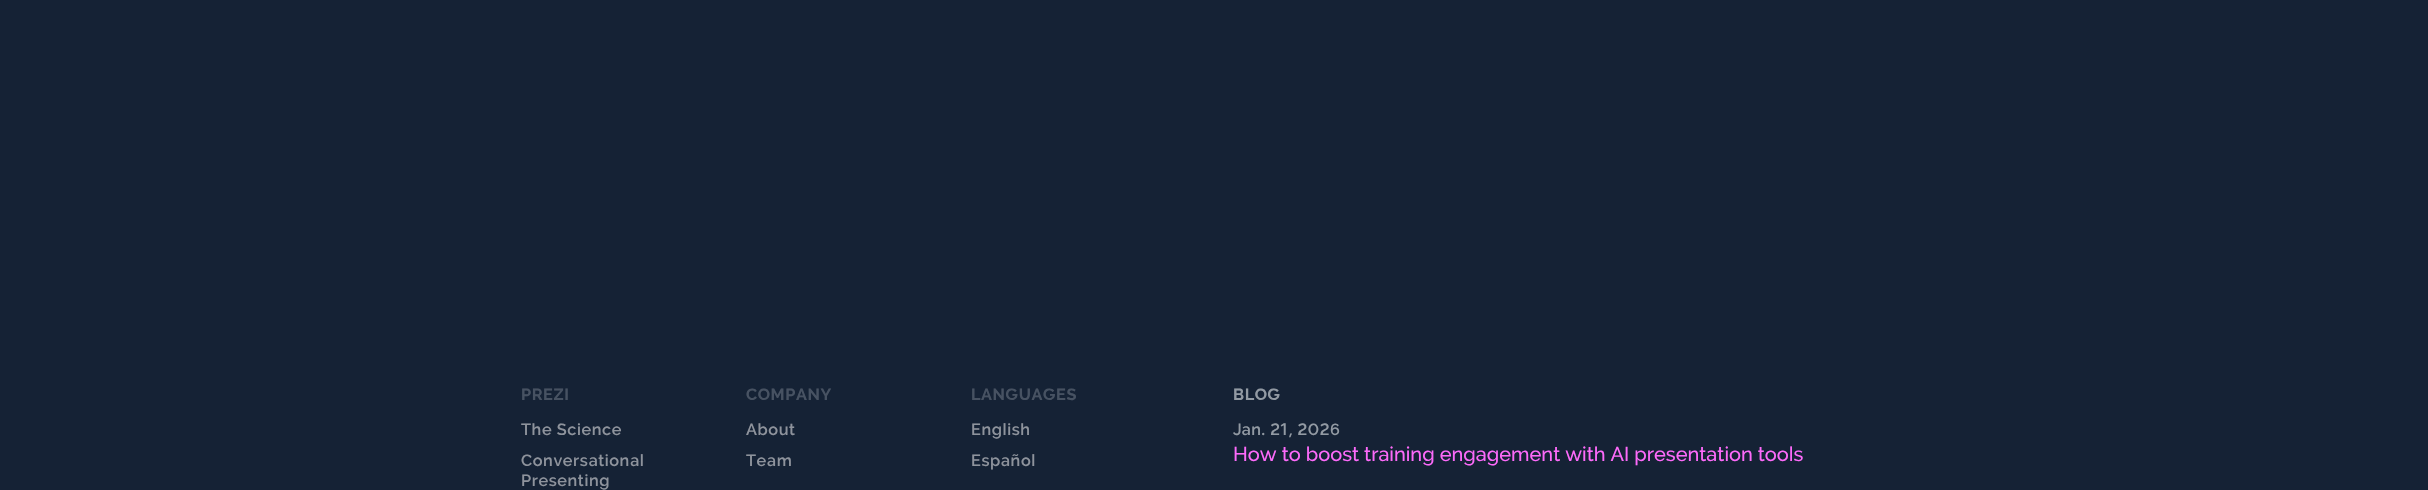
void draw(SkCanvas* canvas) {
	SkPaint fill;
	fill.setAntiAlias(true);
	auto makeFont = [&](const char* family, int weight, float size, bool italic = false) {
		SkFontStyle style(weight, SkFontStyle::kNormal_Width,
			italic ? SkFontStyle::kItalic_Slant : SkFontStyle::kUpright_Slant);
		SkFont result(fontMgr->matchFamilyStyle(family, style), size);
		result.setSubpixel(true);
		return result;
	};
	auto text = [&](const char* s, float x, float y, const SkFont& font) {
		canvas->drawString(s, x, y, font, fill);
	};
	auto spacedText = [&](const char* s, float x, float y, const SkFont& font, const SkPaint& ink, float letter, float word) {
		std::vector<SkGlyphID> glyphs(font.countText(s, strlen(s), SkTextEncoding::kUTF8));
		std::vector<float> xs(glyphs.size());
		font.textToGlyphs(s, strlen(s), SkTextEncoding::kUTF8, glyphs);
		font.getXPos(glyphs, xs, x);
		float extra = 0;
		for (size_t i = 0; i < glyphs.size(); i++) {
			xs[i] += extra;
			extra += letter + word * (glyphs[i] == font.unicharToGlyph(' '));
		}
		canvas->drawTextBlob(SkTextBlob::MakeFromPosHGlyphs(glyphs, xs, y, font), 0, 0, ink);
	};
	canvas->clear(0xFF152235);
	auto font1 = makeFont("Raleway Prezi", 700, 16.25f);
	fill.setColor(0xFF475262);
	spacedText("PREZI", 521, 400, font1, fill, 0.6f, 0);
	auto font2 = makeFont("Raleway Prezi", 600, 16.25f);
	fill.setColor(0xFF8E939C);
	spacedText("The Science", 521, 435, font2, fill, 0.6f, 0);
	spacedText("Conversational", 521, 466, font2, fill, 0.6f, 0);
	spacedText("Presenting", 521, 486, font2, fill, 0.6f, 0);
	fill.setColor(0xFF475262);
	spacedText("COMPANY", 746, 400, font1, fill, 0.6f, 0);
	fill.setColor(0xFF8E939C);
	spacedText("About", 746, 435, font2, fill, 0.6f, 0);
	spacedText("Team", 746, 466, font2, fill, 0.6f, 0);
	fill.setColor(0xFF475262);
	spacedText("LANGUAGES", 971, 400, font1, fill, 0.6f, 0);
	fill.setColor(0xFF8E939C);
	spacedText("English", 971, 435, font2, fill, 0.6f, 0);
	spacedText("Español", 971, 466, font2, fill, 0.6f, 0);
	fill.setColor(0xFF929AA3);
	spacedText("BLOG", 1233, 400, font1, fill, 0.6f, 0);
	spacedText("Jan. 21, 2026", 1233, 435, font2, fill, 0.6f, 0);
	auto font3 = makeFont("Raleway Prezi", 500, 20);
	fill.setColor(0xFFFD6AFA);
	text("How to boost training engagement with AI presentation tools", 1233, 461, font3);
}
